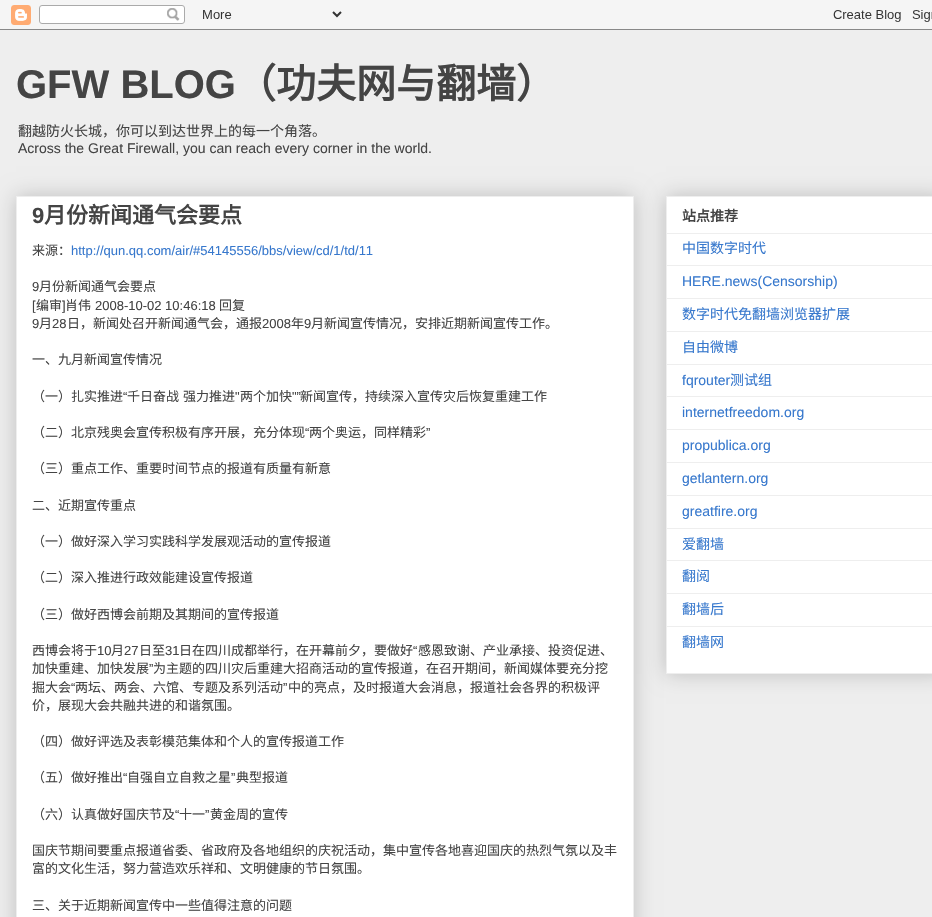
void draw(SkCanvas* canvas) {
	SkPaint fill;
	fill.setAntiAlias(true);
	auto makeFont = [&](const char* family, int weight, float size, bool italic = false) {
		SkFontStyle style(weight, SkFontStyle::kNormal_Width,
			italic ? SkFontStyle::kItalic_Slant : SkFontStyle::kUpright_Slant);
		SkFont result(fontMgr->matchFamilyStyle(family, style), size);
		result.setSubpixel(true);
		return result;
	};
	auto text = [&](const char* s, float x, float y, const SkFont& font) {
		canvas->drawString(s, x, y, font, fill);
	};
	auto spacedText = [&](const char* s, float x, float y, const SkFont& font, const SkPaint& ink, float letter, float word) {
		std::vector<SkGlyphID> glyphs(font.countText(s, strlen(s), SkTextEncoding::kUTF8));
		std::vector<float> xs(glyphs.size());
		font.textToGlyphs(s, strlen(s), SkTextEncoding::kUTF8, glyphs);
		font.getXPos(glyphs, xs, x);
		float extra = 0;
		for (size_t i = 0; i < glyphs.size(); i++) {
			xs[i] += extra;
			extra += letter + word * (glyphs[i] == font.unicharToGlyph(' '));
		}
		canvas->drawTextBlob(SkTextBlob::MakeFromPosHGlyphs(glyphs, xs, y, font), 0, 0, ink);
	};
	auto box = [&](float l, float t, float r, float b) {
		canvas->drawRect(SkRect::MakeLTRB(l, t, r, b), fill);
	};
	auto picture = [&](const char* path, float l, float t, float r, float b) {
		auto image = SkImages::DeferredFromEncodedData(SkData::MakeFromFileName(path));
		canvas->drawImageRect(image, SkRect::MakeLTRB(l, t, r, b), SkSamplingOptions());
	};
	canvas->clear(0xFFEEEEEE);
	picture("image0.png", 0, 0, 932, 30);
	fill.setColor(0x33000000);
	fill.setMaskFilter(SkMaskFilter::MakeBlur(kNormal_SkBlurStyle, 10));
	canvas->drawRect(SkRect::MakeLTRB(16, 196, 634, 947), fill);
	fill.setMaskFilter(nullptr);
	fill.setColor(0xFFFFFFFF);
	canvas->drawRect(SkRect::MakeLTRB(16.5f, 196.5f, 633.5f, 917.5f), fill);
	fill.setStyle(SkPaint::kStroke_Style);
	fill.setStrokeWidth(1);
	fill.setColor(0xFFEEEEEE);
	canvas->drawRect(SkRect::MakeLTRB(16.5f, 196.5f, 633.5f, 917.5f), fill);
	fill.setStyle(SkPaint::kFill_Style);
	fill.setColor(0x33000000);
	fill.setMaskFilter(SkMaskFilter::MakeBlur(kNormal_SkBlurStyle, 10));
	canvas->drawRect(SkRect::MakeLTRB(666, 196, 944, 674), fill);
	fill.setMaskFilter(nullptr);
	fill.setColor(0xFFFFFFFF);
	canvas->drawRect(SkRect::MakeLTRB(666.5f, 196.5f, 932.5f, 673.5f), fill);
	fill.setStyle(SkPaint::kStroke_Style);
	fill.setColor(0xFFEEEEEE);
	canvas->drawRect(SkRect::MakeLTRB(666.5f, 196.5f, 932.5f, 673.5f), fill);
	fill.setStyle(SkPaint::kFill_Style);
	box(667, 233, 932, 234);
	box(667, 265, 932, 266);
	box(667, 298, 932, 299);
	box(667, 331, 932, 332);
	box(667, 364, 932, 365);
	box(667, 396, 932, 397);
	box(667, 429, 932, 430);
	box(667, 462, 932, 463);
	box(667, 495, 932, 496);
	box(667, 528, 932, 529);
	box(667, 560, 932, 561);
	box(667, 593, 932, 594);
	box(667, 626, 932, 627);
	auto font1 = makeFont("Liberation Sans", 700, 40);
	fill.setColor(0xFF444444);
	text("GFW BLOG", 16, 98, font1);
	auto font2 = makeFont("Noto Sans CJK SC", 700, 40);
	text("（功夫网与翻墙）", 236, 98, font2);
	auto font3 = makeFont("Noto Sans CJK SC", 400, 14);
	text("翻越防火长城，你可以到达世界上的每一个角落。", 18, 136, font3);
	auto font4 = makeFont("Liberation Sans", 400, 14);
	text("Across the Great Firewall, you can reach every corner in the world.", 18, 153, font4);
	auto font5 = makeFont("Liberation Sans", 700, 22);
	text("9", 32, 223, font5);
	auto font6 = makeFont("Noto Sans CJK SC", 700, 22);
	text("月份新闻通气会要点", 44, 223, font6);
	auto font7 = makeFont("Noto Sans CJK SC", 400, 13);
	text("来源：", 32, 255, font7);
	auto font8 = makeFont("Liberation Sans", 400, 13);
	fill.setColor(0xFF3778CD);
	text("http://qun.qq.com/air/#54145556/bbs/view/cd/1/td/11", 71, 255, font8);
	fill.setColor(0xFF444444);
	text("9", 32, 291, font8);
	text("月份新闻通气会要点", 39, 291, font7);
	text("[", 32, 310, font8);
	text("编审", 36, 310, font7);
	text("]", 62, 310, font8);
	text("肖伟", 65, 310, font7);
	text("2008-10-02 10:46:18", 95, 310, font8);
	text("回复", 219, 310, font7);
	text("9", 32, 328, font8);
	text("月", 39, 328, font7);
	text("28", 52, 328, font8);
	text("日，新闻处召开新闻通气会，通报", 67, 328, font7);
	text("2008", 262, 328, font8);
	text("年", 291, 328, font7);
	text("9", 304, 328, font8);
	text("月新闻宣传情况，安排近期新闻宣传工作。", 311, 328, font7);
	text("一、九月新闻宣传情况", 32, 364, font7);
	text("（一）扎实推进", 32, 401, font7);
	text("“", 123, 401, font8);
	spacedText("千日奋战 强力推进", 127, 401, font7, fill, 0, 1);
	text("\"", 235, 401, font8);
	text("两个加快", 240, 401, font7);
	text("\"”", 292, 401, font8);
	text("新闻宣传，持续深入宣传灾后恢复重建工作", 300, 401, font7);
	text("（二）北京残奥会宣传积极有序开展，充分体现", 32, 437, font7);
	text("“", 305, 437, font8);
	text("两个奥运，同样精彩", 309, 437, font7);
	text("”", 426, 437, font8);
	text("（三）重点工作、重要时间节点的报道有质量有新意", 32, 473, font7);
	text("二、近期宣传重点", 32, 510, font7);
	text("（一）做好深入学习实践科学发展观活动的宣传报道", 32, 546, font7);
	text("（二）深入推进行政效能建设宣传报道", 32, 582, font7);
	text("（三）做好西博会前期及其期间的宣传报道", 32, 619, font7);
	text("西博会将于", 32, 655, font7);
	text("10", 97, 655, font8);
	text("月", 111, 655, font7);
	text("27", 124, 655, font8);
	text("日至", 139, 655, font7);
	text("31", 165, 655, font8);
	text("日在四川成都举行，在开幕前夕，要做好", 179, 655, font7);
	text("“", 413, 655, font8);
	text("感恩致谢、产业承接、投资促进、", 418, 655, font7);
	text("加快重建、加快发展", 32, 673, font7);
	text("”", 149, 673, font8);
	text("为主题的四川灾后重建大招商活动的宣传报道，在召开期间，新闻媒体要充分挖", 153, 673, font7);
	text("掘大会", 32, 692, font7);
	text("“", 71, 692, font8);
	text("两坛、两会、六馆、专题及系列活动", 75, 692, font7);
	text("”", 283, 692, font8);
	text("中的亮点，及时报道大会消息，报道社会各界的积极评", 288, 692, font7);
	text("价，展现大会共融共进的和谐氛围。", 32, 710, font7);
	text("（四）做好评选及表彰模范集体和个人的宣传报道工作", 32, 746, font7);
	text("（五）做好推出", 32, 782, font7);
	text("“", 123, 782, font8);
	text("自强自立自救之星", 127, 782, font7);
	text("”", 231, 782, font8);
	text("典型报道", 236, 782, font7);
	text("（六）认真做好国庆节及", 32, 819, font7);
	text("“", 175, 819, font8);
	text("十一", 179, 819, font7);
	text("”", 205, 819, font8);
	text("黄金周的宣传", 210, 819, font7);
	text("国庆节期间要重点报道省委、省政府及各地组织的庆祝活动，集中宣传各地喜迎国庆的热烈气氛以及丰", 32, 855, font7);
	text("富的文化生活，努力营造欢乐祥和、文明健康的节日氛围。", 32, 873, font7);
	text("三、关于近期新闻宣传中一些值得注意的问题", 32, 910, font7);
	auto font9 = makeFont("Noto Sans CJK SC", 700, 14);
	text("站点推荐", 682, 221, font9);
	fill.setColor(0xFF3778CD);
	text("中国数字时代", 682, 253, font3);
	text("HERE.news(Censorship)", 682, 286, font4);
	text("数字时代免翻墙浏览器扩展", 682, 319, font3);
	text("自由微博", 682, 352, font3);
	text("fqrouter", 682, 385, font4);
	text("测试组", 730, 385, font3);
	text("internetfreedom.org", 682, 417, font4);
	text("propublica.org", 682, 450, font4);
	text("getlantern.org", 682, 483, font4);
	text("greatfire.org", 682, 516, font4);
	text("爱翻墙", 682, 549, font3);
	text("翻阅", 682, 581, font3);
	text("翻墙后", 682, 614, font3);
	text("翻墙网", 682, 647, font3);
}
